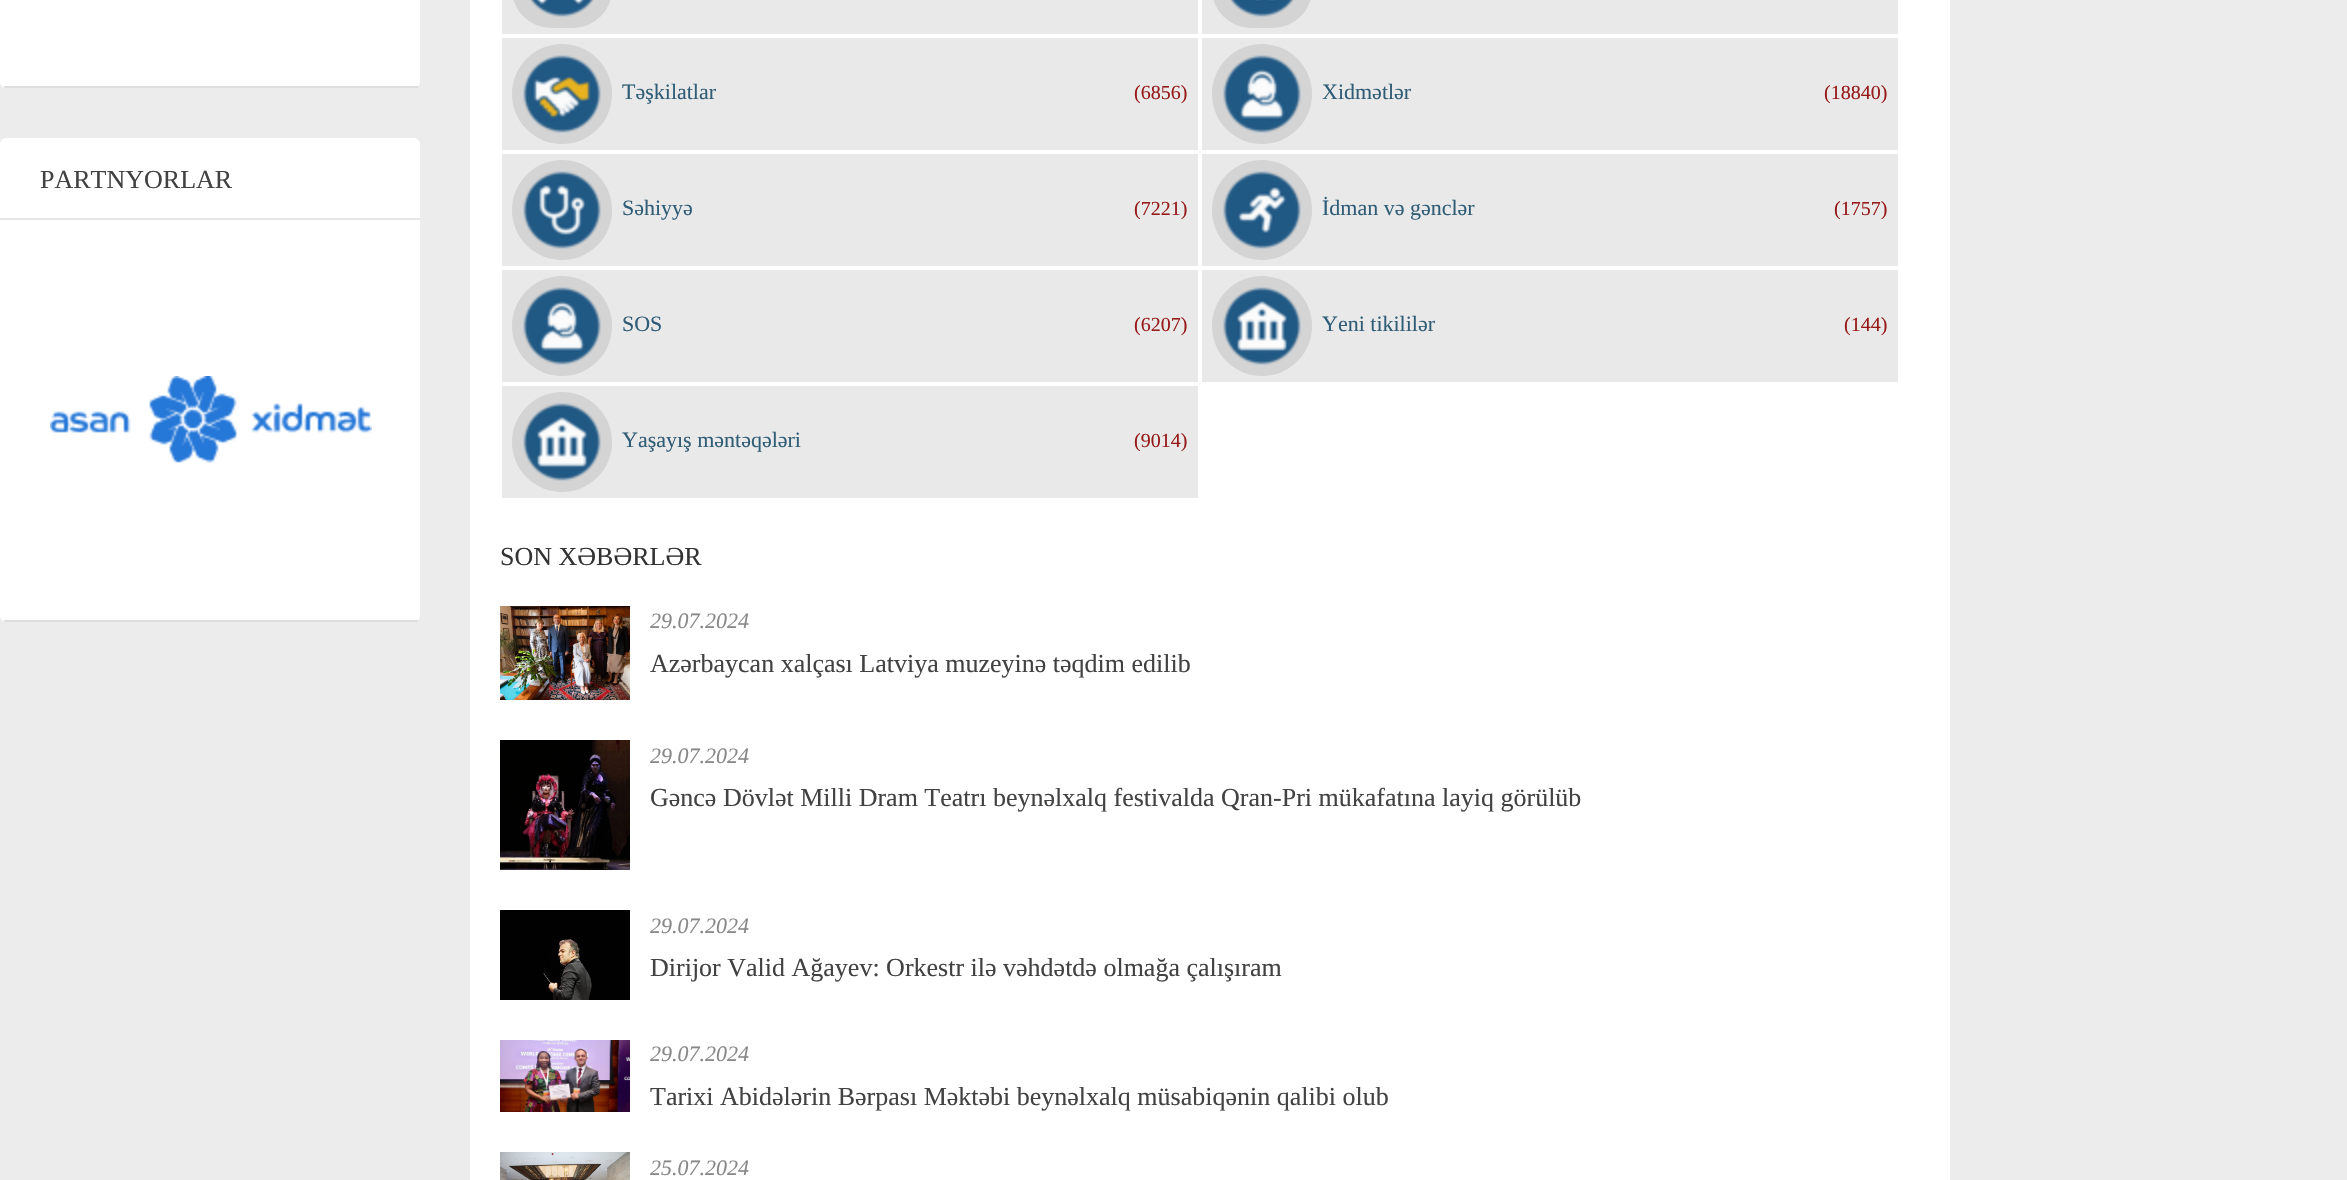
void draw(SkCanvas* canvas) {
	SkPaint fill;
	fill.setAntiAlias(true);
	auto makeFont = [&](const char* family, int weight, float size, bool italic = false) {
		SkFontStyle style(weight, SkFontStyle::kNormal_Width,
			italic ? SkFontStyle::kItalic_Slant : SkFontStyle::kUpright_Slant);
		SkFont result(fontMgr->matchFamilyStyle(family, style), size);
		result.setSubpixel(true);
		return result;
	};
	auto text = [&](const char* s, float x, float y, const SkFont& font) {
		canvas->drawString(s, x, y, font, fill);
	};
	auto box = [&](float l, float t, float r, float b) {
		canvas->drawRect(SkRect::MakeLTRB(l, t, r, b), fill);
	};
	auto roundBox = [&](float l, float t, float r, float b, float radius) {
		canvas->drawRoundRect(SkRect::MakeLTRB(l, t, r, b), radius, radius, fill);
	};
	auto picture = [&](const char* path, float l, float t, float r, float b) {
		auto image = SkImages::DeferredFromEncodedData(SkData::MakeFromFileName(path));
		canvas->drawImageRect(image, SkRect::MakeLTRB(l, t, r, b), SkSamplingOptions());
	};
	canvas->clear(0xFFECECEC);
	fill.setColor(0xFFFFFFFF);
	roundBox(0, -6, 420, 88, 6);
	fill.setColor(0xFFDEDEDE);
	box(4, 86, 418, 88);
	fill.setColor(0xFFFFFFFF);
	roundBox(0, 138, 420, 622, 6);
	fill.setColor(0xFFDEDEDE);
	box(4, 620, 418, 622);
	fill.setColor(0xFFE6E6E6);
	box(0, 218, 420, 220);
	picture("image0.png", 50, 376, 372, 463);
	fill.setColor(0xFFFFFFFF);
	box(470, 0, 1950, 1180);
	fill.setColor(0xFFE9E9E9);
	box(502, 0, 1198, 34);
	fill.setColor(0xFFD4D4D4);
	roundBox(512, -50, 612, 28, 50);
	picture("image1.png", 530, 0, 594, 17);
	fill.setColor(0xFFE9E9E9);
	box(1202, 0, 1898, 34);
	fill.setColor(0xFFD4D4D4);
	roundBox(1212, -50, 1312, 28, 50);
	picture("image2.png", 1230, 0, 1294, 17);
	fill.setColor(0xFFE9E9E9);
	box(502, 38, 1198, 150);
	fill.setColor(0xFFD4D4D4);
	canvas->drawCircle(562, 94, 50, fill);
	picture("image3.png", 523, 55, 601, 133);
	fill.setColor(0xFFE9E9E9);
	box(1202, 38, 1898, 150);
	fill.setColor(0xFFD4D4D4);
	canvas->drawCircle(1262, 94, 50, fill);
	picture("image4.png", 1223, 55, 1301, 133);
	fill.setColor(0xFFE9E9E9);
	box(502, 154, 1198, 266);
	fill.setColor(0xFFD4D4D4);
	canvas->drawCircle(562, 210, 50, fill);
	picture("image5.png", 523, 171, 601, 249);
	fill.setColor(0xFFE9E9E9);
	box(1202, 154, 1898, 266);
	fill.setColor(0xFFD4D4D4);
	canvas->drawCircle(1262, 210, 50, fill);
	picture("image6.png", 1223, 171, 1301, 249);
	fill.setColor(0xFFE9E9E9);
	box(502, 270, 1198, 382);
	fill.setColor(0xFFD4D4D4);
	canvas->drawCircle(562, 326, 50, fill);
	picture("image4.png", 523, 287, 601, 365);
	fill.setColor(0xFFE9E9E9);
	box(1202, 270, 1898, 382);
	fill.setColor(0xFFD4D4D4);
	canvas->drawCircle(1262, 326, 50, fill);
	picture("image7.png", 1223, 287, 1301, 365);
	fill.setColor(0xFFE9E9E9);
	box(502, 386, 1198, 498);
	fill.setColor(0xFFD4D4D4);
	canvas->drawCircle(562, 442, 50, fill);
	picture("image7.png", 523, 403, 601, 481);
	picture("image8.png", 500, 606, 630, 700);
	picture("image9.png", 500, 740, 630, 870);
	picture("image10.png", 500, 910, 630, 1000);
	picture("image11.png", 500, 1040, 630, 1112);
	picture("image12.png", 500, 1152, 630, 1180);
	auto font1 = makeFont("Liberation Serif", 400, 26);
	fill.setColor(0xFF424242);
	text("PARTNYORLAR", 40, 188, font1);
	auto font2 = makeFont("Liberation Serif", 400, 22);
	fill.setColor(0xFF2F5C76);
	text("Təşkilatlar", 622, 99, font2);
	auto font3 = makeFont("Liberation Serif", 400, 20);
	fill.setColor(0xFF971A1A);
	text("(6856)", 1134, 99, font3);
	fill.setColor(0xFF2F5C76);
	text("Xidmətlər", 1322, 99, font2);
	fill.setColor(0xFF971A1A);
	text("(18840)", 1824, 99, font3);
	fill.setColor(0xFF2F5C76);
	text("Səhiyyə", 622, 215, font2);
	fill.setColor(0xFF971A1A);
	text("(7221)", 1134, 215, font3);
	fill.setColor(0xFF2F5C76);
	text("İdman və gənclər", 1322, 215, font2);
	fill.setColor(0xFF971A1A);
	text("(1757)", 1834, 215, font3);
	fill.setColor(0xFF2F5C76);
	text("SOS", 622, 331, font2);
	fill.setColor(0xFF971A1A);
	text("(6207)", 1134, 331, font3);
	fill.setColor(0xFF2F5C76);
	text("Yeni tikililər", 1322, 331, font2);
	fill.setColor(0xFF971A1A);
	text("(144)", 1844, 331, font3);
	fill.setColor(0xFF2F5C76);
	text("Yaşayış məntəqələri", 622, 447, font2);
	fill.setColor(0xFF971A1A);
	text("(9014)", 1134, 447, font3);
	fill.setColor(0xFF333333);
	text("SON XƏBƏRLƏR", 500, 565, font1);
	auto font4 = makeFont("Liberation Serif", 400, 22, true);
	fill.setColor(0xFF888888);
	text("29.07.2024", 650, 628, font4);
	fill.setColor(0xFF424242);
	text("Azərbaycan xalçası Latviya muzeyinə təqdim edilib", 650, 672, font1);
	fill.setColor(0xFF888888);
	text("29.07.2024", 650, 763, font4);
	fill.setColor(0xFF424242);
	text("Gəncə Dövlət Milli Dram Teatrı beynəlxalq festivalda Qran-Pri mükafatına layiq görülüb", 650, 806, font1);
	fill.setColor(0xFF888888);
	text("29.07.2024", 650, 933, font4);
	fill.setColor(0xFF424242);
	text("Dirijor Valid Ağayev: Orkestr ilə vəhdətdə olmağa çalışıram", 650, 976, font1);
	fill.setColor(0xFF888888);
	text("29.07.2024", 650, 1061, font4);
	fill.setColor(0xFF424242);
	text("Tarixi Abidələrin Bərpası Məktəbi beynəlxalq müsabiqənin qalibi olub", 650, 1105, font1);
	fill.setColor(0xFF888888);
	text("25.07.2024", 650, 1175, font4);
}
